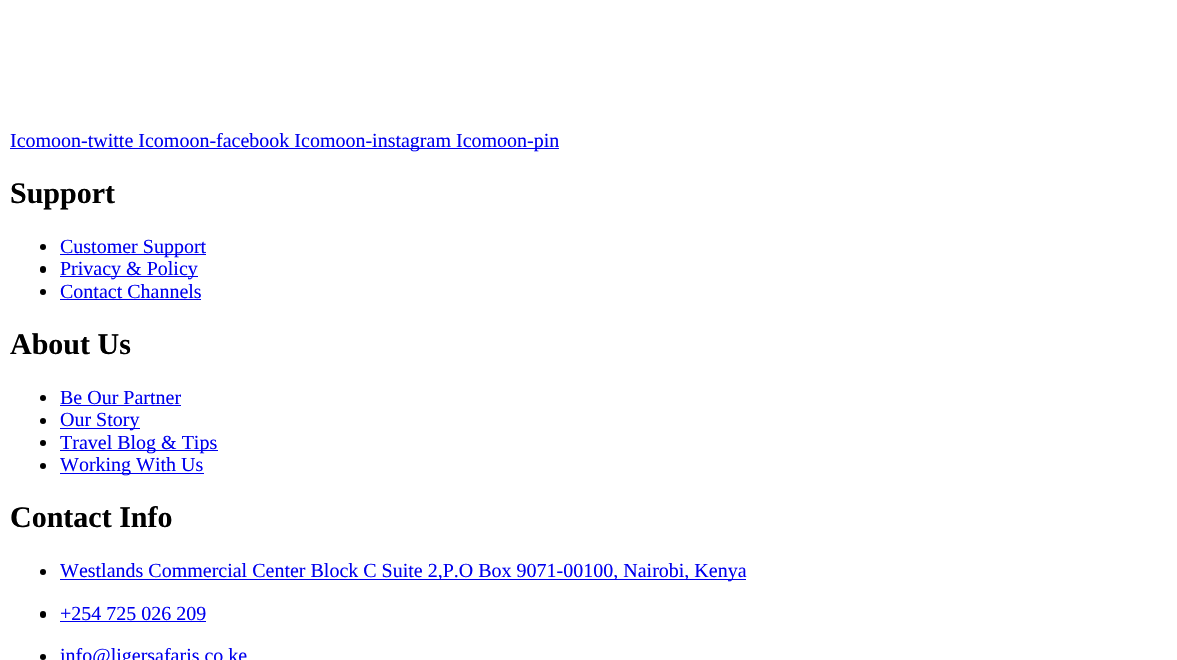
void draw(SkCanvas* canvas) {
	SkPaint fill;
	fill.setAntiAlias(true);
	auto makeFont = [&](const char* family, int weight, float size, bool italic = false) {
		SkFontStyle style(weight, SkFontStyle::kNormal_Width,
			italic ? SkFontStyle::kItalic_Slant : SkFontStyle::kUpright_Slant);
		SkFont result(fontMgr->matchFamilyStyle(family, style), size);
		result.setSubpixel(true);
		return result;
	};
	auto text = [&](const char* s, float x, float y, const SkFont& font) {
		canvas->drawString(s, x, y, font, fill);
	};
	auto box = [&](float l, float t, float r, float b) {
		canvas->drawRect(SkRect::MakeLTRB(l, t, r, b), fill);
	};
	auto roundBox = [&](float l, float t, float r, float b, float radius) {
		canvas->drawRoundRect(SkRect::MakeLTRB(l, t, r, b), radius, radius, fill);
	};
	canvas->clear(0xFFFFFFFF);
	fill.setColor(0xFF0000EE);
	box(10, 148, 559, 149);
	fill.setColor(0xFF000000);
	canvas->drawCircle(43, 247, 3, fill);
	fill.setColor(0xFF0000EE);
	box(60, 254, 206, 255);
	fill.setColor(0xFF000000);
	roundBox(40, 266, 46, 273, 3);
	fill.setColor(0xFF0000EE);
	box(60, 276, 198, 277);
	fill.setColor(0xFF000000);
	canvas->drawCircle(43, 292, 3, fill);
	fill.setColor(0xFF0000EE);
	box(60, 299, 201, 300);
	fill.setColor(0xFF000000);
	canvas->drawCircle(43, 398, 3, fill);
	fill.setColor(0xFF0000EE);
	box(60, 405, 181, 406);
	fill.setColor(0xFF000000);
	canvas->drawCircle(43, 421, 3, fill);
	fill.setColor(0xFF0000EE);
	box(60, 428, 140, 429);
	fill.setColor(0xFF000000);
	canvas->drawCircle(43, 443, 3, fill);
	fill.setColor(0xFF0000EE);
	box(60, 450, 218, 451);
	fill.setColor(0xFF000000);
	canvas->drawCircle(43, 466, 3, fill);
	fill.setColor(0xFF0000EE);
	box(60, 473, 204, 474);
	fill.setColor(0xFF000000);
	canvas->drawCircle(43, 572, 3, fill);
	fill.setColor(0xFF0000EE);
	box(60, 579, 746, 580);
	fill.setColor(0xFF000000);
	roundBox(40, 611, 46, 618, 3);
	fill.setColor(0xFF0000EE);
	box(60, 621, 206, 622);
	fill.setColor(0xFF000000);
	canvas->drawCircle(43, 657, 3, fill);
	auto font1 = makeFont("Liberation Serif", 400, 20);
	fill.setColor(0xFF0000EE);
	text("Icomoon-twitte Icomoon-facebook Icomoon-instagram Icomoon-pin", 10, 147, font1);
	auto font2 = makeFont("Liberation Serif", 700, 30);
	fill.setColor(0xFF000000);
	text("Support", 10, 203, font2);
	fill.setColor(0xFF0000EE);
	text("Customer Support", 60, 253, font1);
	text("Privacy & Policy", 60, 275, font1);
	text("Contact Channels", 60, 298, font1);
	fill.setColor(0xFF000000);
	text("About Us", 10, 354, font2);
	fill.setColor(0xFF0000EE);
	text("Be Our Partner", 60, 404, font1);
	text("Our Story", 60, 426, font1);
	text("Travel Blog & Tips", 60, 449, font1);
	text("Working With Us", 60, 471, font1);
	fill.setColor(0xFF000000);
	text("Contact Info", 10, 527, font2);
	fill.setColor(0xFF0000EE);
	text("Westlands Commercial Center Block C Suite 2,P.O Box 9071-00100, Nairobi, Kenya", 60, 577, font1);
	text("+254 725 026 209", 60, 620, font1);
	text("info@ligersafaris.co.ke", 60, 662, font1);
}
